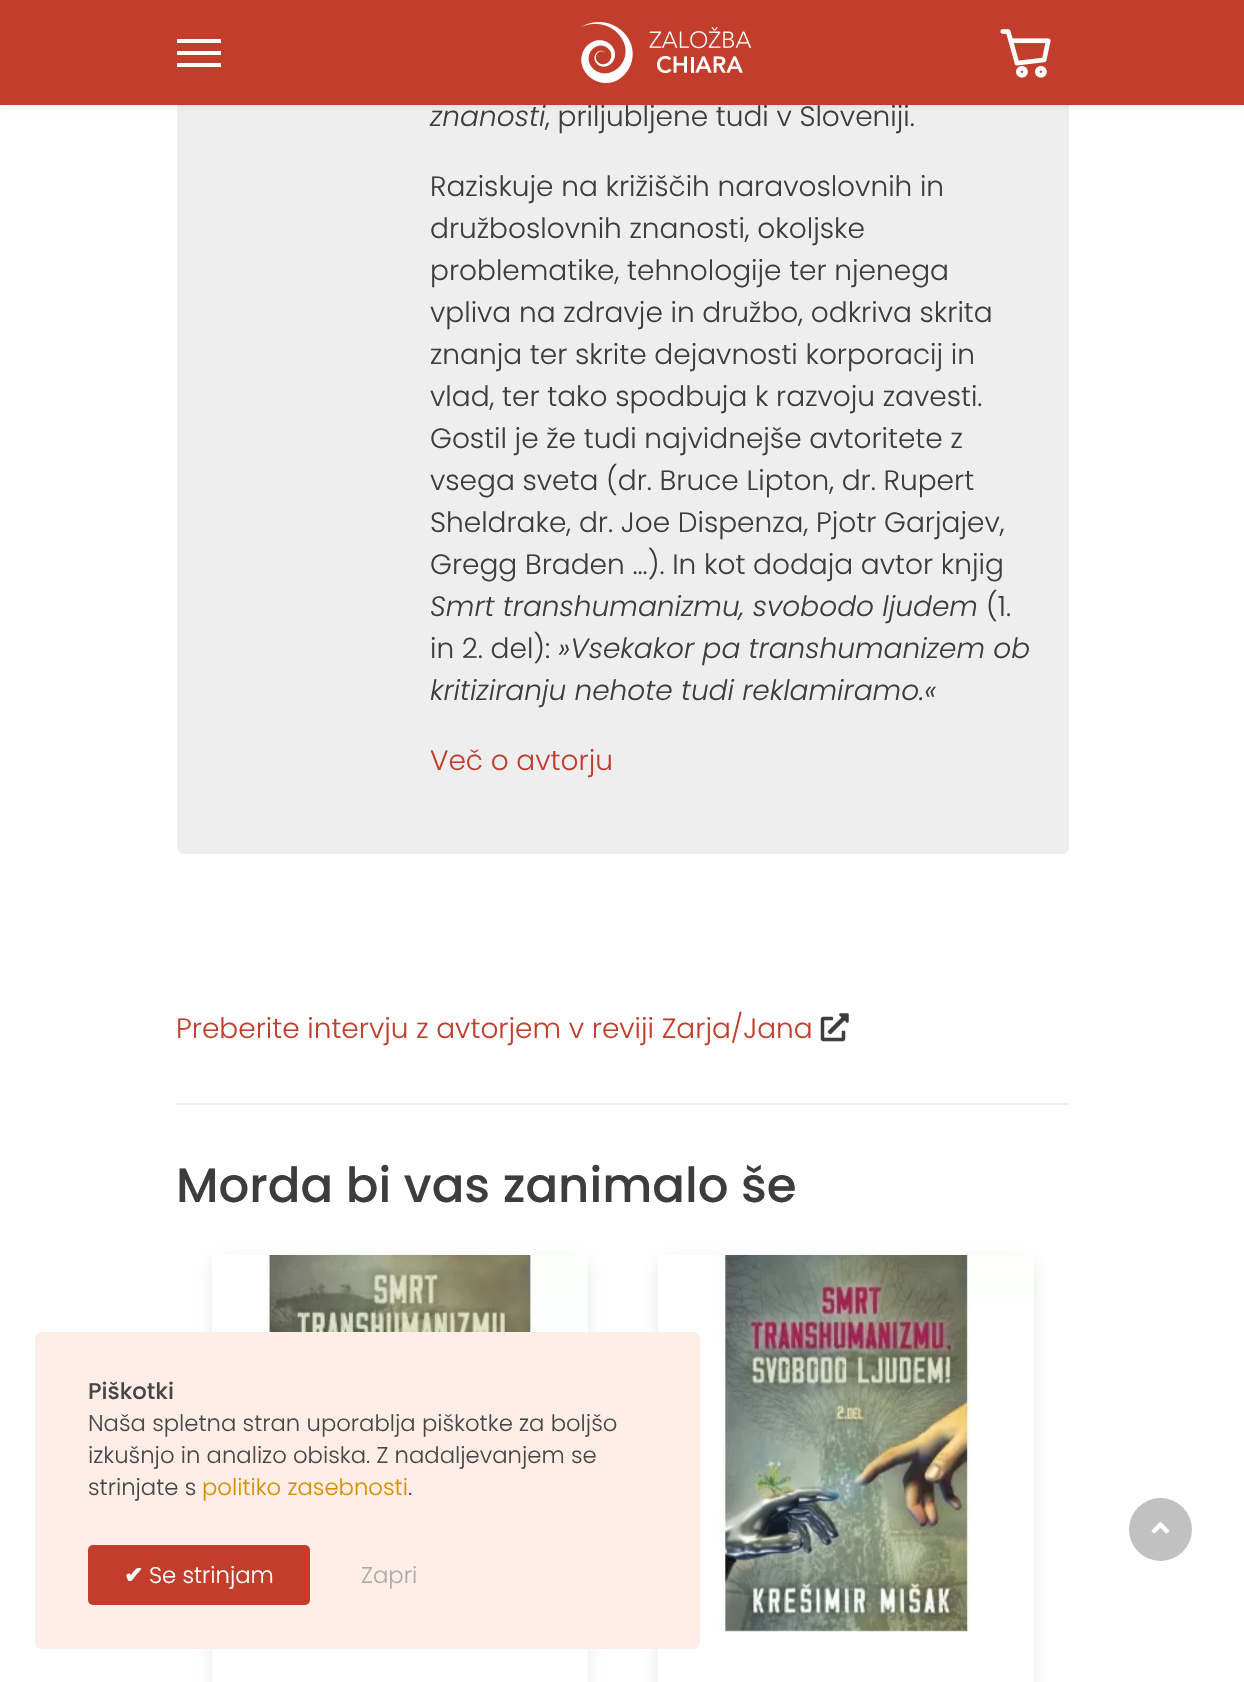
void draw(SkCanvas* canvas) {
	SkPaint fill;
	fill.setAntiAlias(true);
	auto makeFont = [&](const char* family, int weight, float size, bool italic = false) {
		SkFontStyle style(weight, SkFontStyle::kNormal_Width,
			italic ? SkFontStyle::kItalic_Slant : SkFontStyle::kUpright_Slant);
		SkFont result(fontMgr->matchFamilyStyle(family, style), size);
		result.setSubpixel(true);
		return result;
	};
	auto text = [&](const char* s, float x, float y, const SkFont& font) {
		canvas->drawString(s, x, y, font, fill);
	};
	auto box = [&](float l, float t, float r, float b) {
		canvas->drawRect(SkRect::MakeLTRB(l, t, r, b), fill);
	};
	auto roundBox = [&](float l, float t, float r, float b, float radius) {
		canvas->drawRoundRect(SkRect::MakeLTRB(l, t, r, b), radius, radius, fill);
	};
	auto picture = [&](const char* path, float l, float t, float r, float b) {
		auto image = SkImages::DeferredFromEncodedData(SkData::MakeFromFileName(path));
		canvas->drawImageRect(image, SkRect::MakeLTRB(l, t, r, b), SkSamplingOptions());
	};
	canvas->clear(0xFFFFFFFF);
	fill.setColor(0xFFEEEEEE);
	roundBox(177, -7, 1069, 854, 7);
	fill.setColor(0x1A000000);
	fill.setMaskFilter(SkMaskFilter::MakeBlur(kNormal_SkBlurStyle, 3.5f));
	canvas->drawRect(SkRect::MakeLTRB(0, 0, 1244, 105), fill);
	fill.setMaskFilter(nullptr);
	picture("image2.png", 820, 1013, 849, 1042);
	fill.setColor(0xFFEEEEEE);
	box(177, 1103, 1069, 1105);
	canvas->save();
	canvas->clipPath(SkPathBuilder(SkPathFillType::kEvenOdd).moveTo(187, 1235).lineTo(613, 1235).lineTo(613, 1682).lineTo(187, 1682).close().moveTo(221, 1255).lineTo(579, 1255).cubicTo(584, 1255, 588, 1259, 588, 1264).lineTo(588, 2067).cubicTo(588, 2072, 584, 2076, 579, 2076).lineTo(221, 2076).cubicTo(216, 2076, 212, 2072, 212, 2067).lineTo(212, 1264).cubicTo(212, 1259, 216, 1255, 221, 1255).close().detach(), true);
	fill.setColor(0x266D6D6D);
	fill.setMaskFilter(SkMaskFilter::MakeBlur(kNormal_SkBlurStyle, 8));
	canvas->drawRoundRect(SkRect::MakeLTRB(212, 1260, 588, 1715), 9, 9, fill);
	fill.setMaskFilter(nullptr);
	canvas->restore();
	picture("image3.png", 212, 1255, 588, 1332);
	canvas->save();
	canvas->clipPath(SkPathBuilder(SkPathFillType::kEvenOdd).moveTo(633, 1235).lineTo(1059, 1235).lineTo(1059, 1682).lineTo(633, 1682).close().moveTo(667, 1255).lineTo(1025, 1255).cubicTo(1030, 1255, 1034, 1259, 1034, 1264).lineTo(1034, 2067).cubicTo(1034, 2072, 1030, 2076, 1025, 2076).lineTo(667, 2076).cubicTo(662, 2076, 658, 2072, 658, 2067).lineTo(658, 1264).cubicTo(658, 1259, 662, 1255, 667, 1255).close().detach(), true);
	fill.setMaskFilter(SkMaskFilter::MakeBlur(kNormal_SkBlurStyle, 8));
	canvas->drawRoundRect(SkRect::MakeLTRB(658, 1260, 1034, 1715), 9, 9, fill);
	fill.setMaskFilter(nullptr);
	canvas->restore();
	picture("image4.png", 658, 1255, 1034, 1632);
	fill.setColor(0xFFFFEDE7);
	roundBox(35, 1332, 700, 1649, 7);
	fill.setColor(0xFFC23D2B);
	roundBox(88, 1545, 310, 1605, 5);
	fill.setColor(0xFFC1C1C1);
	canvas->drawCircle(1160.5f, 1529.5f, 31.5f, fill);
	picture("image5.png", 1151, 1522, 1169, 1534);
	auto font1 = makeFont("Poppins", 300, 28, true);
	fill.setColor(0xFF3D3D3D);
	text("znanosti", 430, 126, font1);
	auto font2 = makeFont("Poppins", 300, 28);
	text(", priljubljene tudi v Sloveniji.", 545, 126, font2);
	fill.setColor(0xFFC23D2B);
	box(0, 0, 1244, 105);
	picture("image1.png", 1000, 29, 1051, 78);
	picture("image0.png", 581, 22, 752, 83);
	fill.setColor(0xFFFFFFFF);
	box(177, 63, 221, 67);
	box(177, 51, 221, 55);
	box(177, 39, 221, 43);
	fill.setColor(0xFF3D3D3D);
	text("Raziskuje na križiščih naravoslovnih in", 430, 196, font2);
	text("družboslovnih znanosti, okoljske", 430, 238, font2);
	text("problematike, tehnologije ter njenega", 430, 280, font2);
	text("vpliva na zdravje in družbo, odkriva skrita", 430, 322, font2);
	text("znanja ter skrite dejavnosti korporacij in", 430, 364, font2);
	text("vlad, ter tako spodbuja k razvoju zavesti.", 430, 406, font2);
	text("Gostil je že tudi najvidnejše avtoritete z", 430, 448, font2);
	text("vsega sveta (dr. Bruce Lipton, dr. Rupert", 430, 490, font2);
	text("Sheldrake, dr. Joe Dispenza, Pjotr Garjajev,", 430, 532, font2);
	text("Gregg Braden ...). In kot dodaja avtor knjig", 430, 574, font2);
	text("Smrt transhumanizmu, svobodo ljudem", 430, 616, font1);
	text("(1.", 986, 616, font2);
	text("in 2. del):", 430, 658, font2);
	text("»Vsekakor pa transhumanizem ob", 558, 658, font1);
	text("kritiziranju nehote tudi reklamiramo.«", 430, 700, font1);
	fill.setColor(0xFFC23D2B);
	text("Več o avtorju", 430, 770, font2);
	text("Preberite intervju z avtorjem v reviji Zarja/Jana", 176, 1038, font2);
	auto font3 = makeFont("Poppins", 500, 48.25f);
	fill.setColor(0xFF3D3D3D);
	text("Morda bi vas zanimalo še", 176, 1202, font3);
	auto font4 = makeFont("Poppins", 500, 22.75f);
	fill.setColor(0xFF474747);
	text("Piškotki", 88, 1399, font4);
	auto font5 = makeFont("Poppins", 300, 22.75f);
	text("Naša spletna stran uporablja piškotke za boljšo", 88, 1431, font5);
	text("izkušnjo in analizo obiska. Z nadaljevanjem se", 88, 1463, font5);
	text("strinjate s", 88, 1495, font5);
	fill.setColor(0xFFD68E00);
	text("politiko zasebnosti", 202, 1495, font5);
	fill.setColor(0xFF474747);
	text(".", 408, 1495, font5);
	auto font6 = makeFont("DejaVu Sans", 700, 22.75f);
	fill.setColor(0xFFFFFFFF);
	text("✔", 124, 1583, font6);
	text("Se strinjam", 149, 1583, font5);
	fill.setColor(0xFFABABAB);
	text("Zapri", 361, 1583, font5);
}
